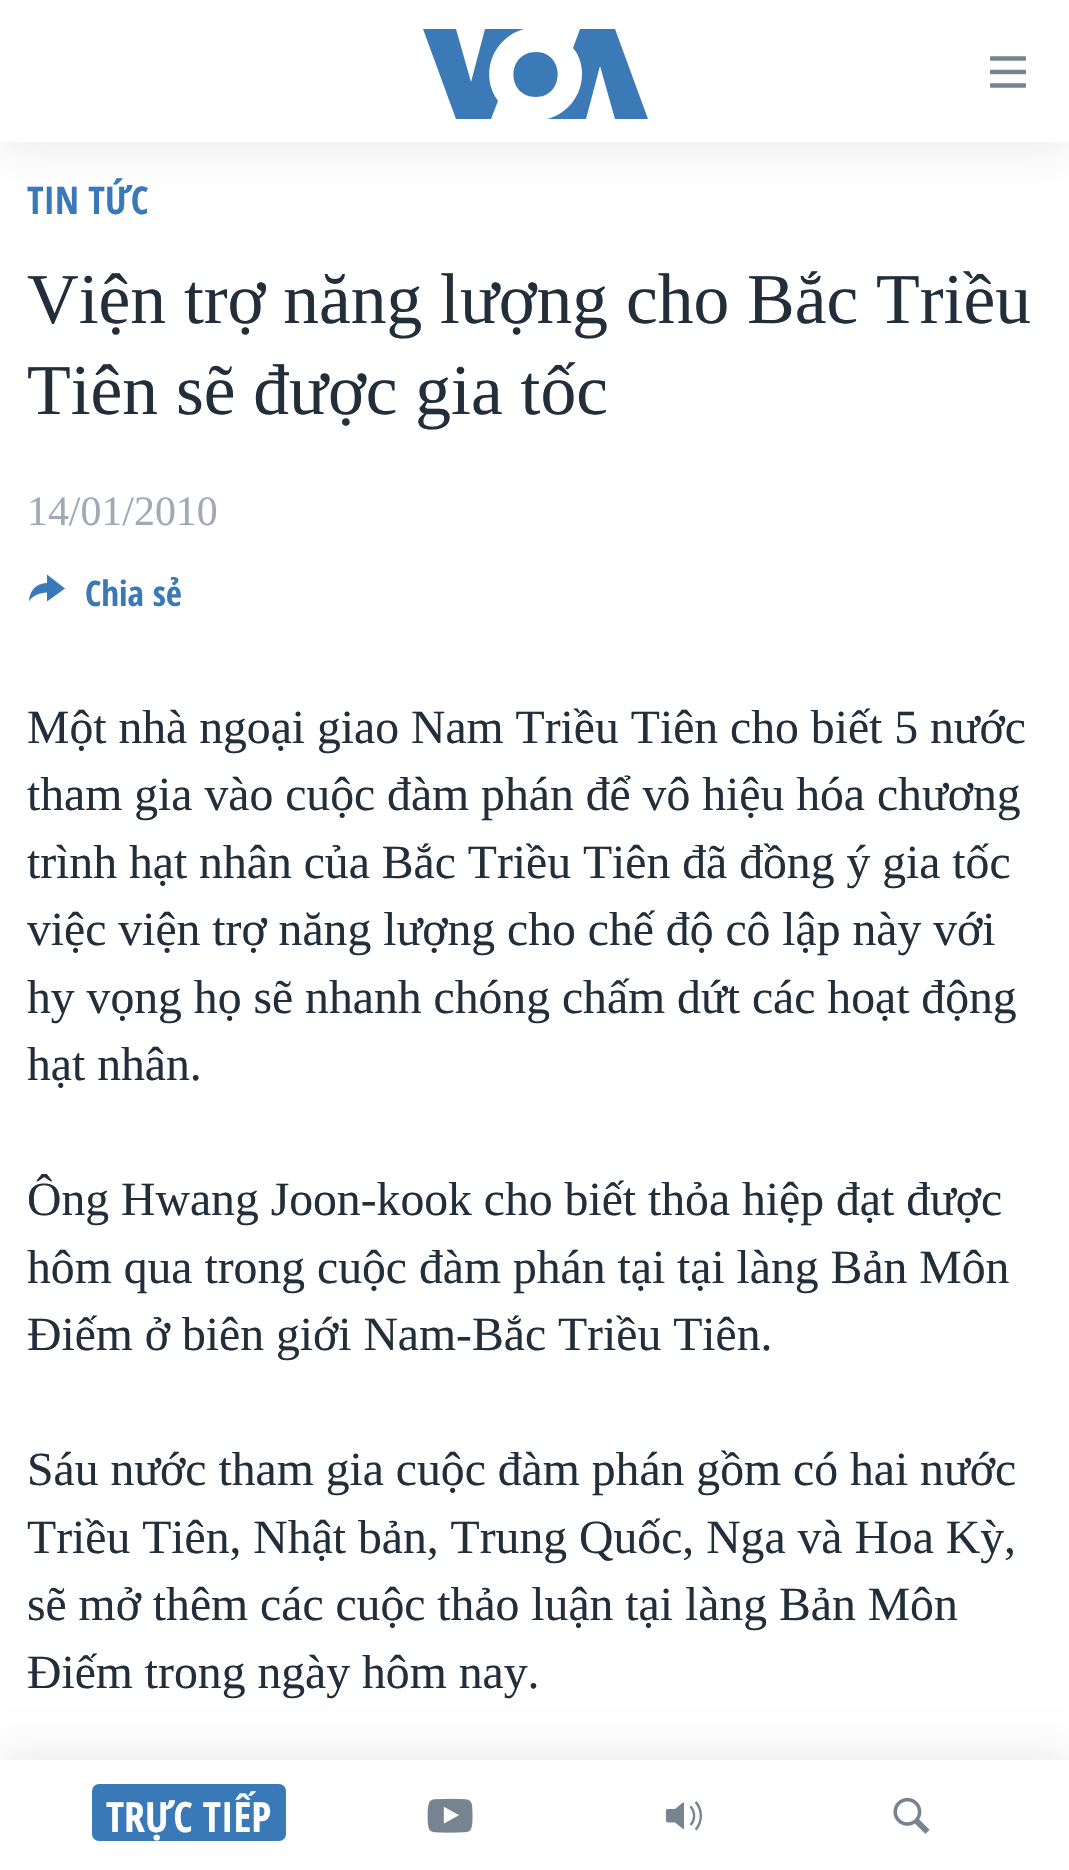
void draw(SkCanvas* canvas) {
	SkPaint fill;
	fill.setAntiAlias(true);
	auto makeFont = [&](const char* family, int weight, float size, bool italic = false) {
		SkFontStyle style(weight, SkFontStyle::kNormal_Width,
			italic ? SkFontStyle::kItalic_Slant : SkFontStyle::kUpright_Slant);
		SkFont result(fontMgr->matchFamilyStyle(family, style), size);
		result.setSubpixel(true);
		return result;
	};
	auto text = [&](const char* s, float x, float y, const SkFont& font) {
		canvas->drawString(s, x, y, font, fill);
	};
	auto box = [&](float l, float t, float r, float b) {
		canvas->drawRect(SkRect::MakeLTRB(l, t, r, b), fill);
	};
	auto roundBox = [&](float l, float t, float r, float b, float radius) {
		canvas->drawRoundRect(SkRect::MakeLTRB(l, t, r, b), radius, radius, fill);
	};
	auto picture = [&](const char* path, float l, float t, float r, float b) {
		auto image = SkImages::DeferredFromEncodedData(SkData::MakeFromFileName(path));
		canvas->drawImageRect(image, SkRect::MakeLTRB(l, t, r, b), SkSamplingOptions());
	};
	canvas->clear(0xFFFFFFFF);
	fill.setColor(0xFF3A79B7);
	canvas->drawPath(SkPathBuilder().moveTo(29, 601.5f).cubicTo(29.5f, 590.5f, 36, 583.5f, 47, 583).lineTo(47, 574.5f).lineTo(65, 588.5f).lineTo(47, 601.5f).lineTo(47, 592.5f).cubicTo(40.5f, 593, 32.5f, 595, 29, 601.5f).close().detach(), fill);
	fill.setColor(0x1A000000);
	fill.setMaskFilter(SkMaskFilter::MakeBlur(kNormal_SkBlurStyle, 22.5f));
	canvas->drawRect(SkRect::MakeLTRB(0, 0, 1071, 142), fill);
	fill.setMaskFilter(nullptr);
	fill.setColor(0xFFFFFFFF);
	box(0, 0, 1069, 142);
	fill.setColor(0xFF3B79B7);
	canvas->drawPath(SkPathBuilder().moveTo(498, 101).lineTo(491, 119).lineTo(456, 119).lineTo(423, 29).lineTo(456, 29).lineTo(471, 82).lineTo(485, 29).lineTo(524, 29).cubicTo(492, 38, 479, 75, 498, 101).close().moveTo(536, 52).cubicTo(506, 52, 506, 97, 536, 97).cubicTo(565, 97, 565, 52, 536, 52).close().moveTo(582, 74).cubicTo(582, 96, 567, 114, 547, 119).lineTo(586, 119).lineTo(600, 66).lineTo(615, 119).lineTo(648, 119).lineTo(615, 29).lineTo(580, 29).lineTo(573, 48).cubicTo(579, 55, 582, 64, 582, 74).close().detach(), fill);
	picture("image0.png", 990, 56, 1026, 88);
	fill.setColor(0x1A000000);
	fill.setMaskFilter(SkMaskFilter::MakeBlur(kNormal_SkBlurStyle, 22.5f));
	canvas->drawRect(SkRect::MakeLTRB(0, 1760, 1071, 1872), fill);
	fill.setMaskFilter(nullptr);
	fill.setColor(0xFFFFFFFF);
	box(0, 1760, 1069, 1870);
	fill.setColor(0xFF3A79B7);
	roundBox(92, 1784, 286, 1841, 7);
	picture("image1.png", 427, 1798, 473, 1833);
	picture("image2.png", 666, 1801, 702, 1831);
	picture("image3.png", 893, 1797, 930, 1834);
	auto font1 = makeFont("Open Sans Condensed", 700, 43);
	text("TIN TỨC", 27, 214, font1);
	auto font2 = makeFont("Tinos", 400, 67.5f);
	fill.setColor(0xFF222F3A);
	text("Viện trợ năng lượng cho Bắc Triều", 27, 323, font2);
	text("Tiên sẽ được gia tốc", 27, 414, font2);
	auto font3 = makeFont("Tinos", 400, 39.5f);
	fill.setColor(0xFFA1AAB4);
	text("14/01/2010", 27, 525, font3);
	auto font4 = makeFont("Open Sans Condensed", 700, 39.5f);
	fill.setColor(0xFF3A79B7);
	text("Chia sẻ", 85, 606, font4);
	auto font5 = makeFont("Tinos", 400, 45);
	fill.setColor(0xFF222F3A);
	text("Một nhà ngoại giao Nam Triều Tiên cho biết 5 nước", 27, 743, font5);
	text("tham gia vào cuộc đàm phán để vô hiệu hóa chương", 27, 810, font5);
	text("trình hạt nhân của Bắc Triều Tiên đã đồng ý gia tốc", 27, 878, font5);
	text("việc viện trợ năng lượng cho chế độ cô lập này với", 27, 945, font5);
	text("hy vọng họ sẽ nhanh chóng chấm dứt các hoạt động", 27, 1013, font5);
	text("hạt nhân.", 27, 1080, font5);
	text("Ông Hwang Joon-kook cho biết thỏa hiệp đạt được", 27, 1215, font5);
	text("hôm qua trong cuộc đàm phán tại tại làng Bản Môn", 27, 1283, font5);
	text("Điếm ở biên giới Nam-Bắc Triều Tiên.", 27, 1350, font5);
	text("Sáu nước tham gia cuộc đàm phán gồm có hai nước", 27, 1485, font5);
	text("Triều Tiên, Nhật bản, Trung Quốc, Nga và Hoa Kỳ,", 27, 1553, font5);
	text("sẽ mở thêm các cuộc thảo luận tại làng Bản Môn", 27, 1620, font5);
	text("Điếm trong ngày hôm nay.", 27, 1688, font5);
	auto font6 = makeFont("Open Sans Condensed", 700, 47);
	fill.setColor(0xFFFFFFFF);
	text("TRỰC TIẾP", 106, 1832, font6);
}
